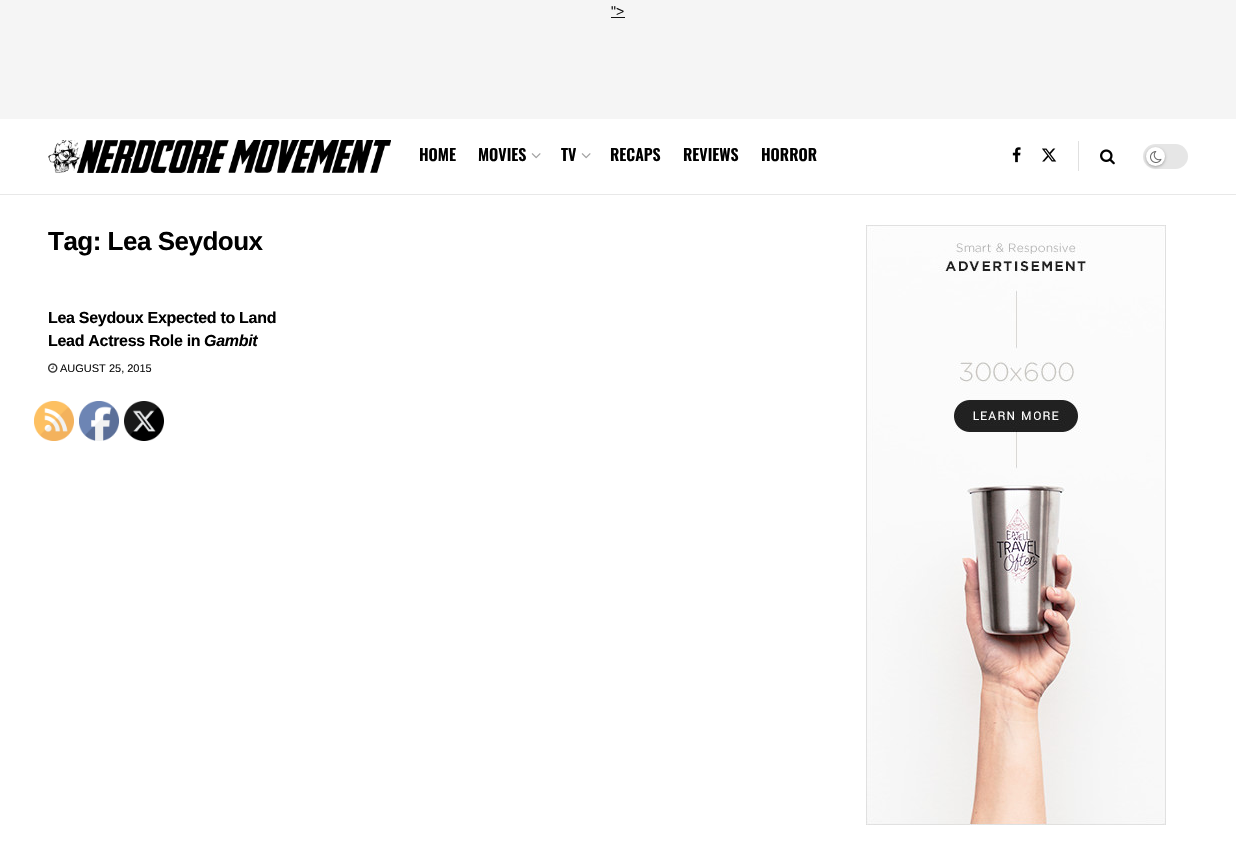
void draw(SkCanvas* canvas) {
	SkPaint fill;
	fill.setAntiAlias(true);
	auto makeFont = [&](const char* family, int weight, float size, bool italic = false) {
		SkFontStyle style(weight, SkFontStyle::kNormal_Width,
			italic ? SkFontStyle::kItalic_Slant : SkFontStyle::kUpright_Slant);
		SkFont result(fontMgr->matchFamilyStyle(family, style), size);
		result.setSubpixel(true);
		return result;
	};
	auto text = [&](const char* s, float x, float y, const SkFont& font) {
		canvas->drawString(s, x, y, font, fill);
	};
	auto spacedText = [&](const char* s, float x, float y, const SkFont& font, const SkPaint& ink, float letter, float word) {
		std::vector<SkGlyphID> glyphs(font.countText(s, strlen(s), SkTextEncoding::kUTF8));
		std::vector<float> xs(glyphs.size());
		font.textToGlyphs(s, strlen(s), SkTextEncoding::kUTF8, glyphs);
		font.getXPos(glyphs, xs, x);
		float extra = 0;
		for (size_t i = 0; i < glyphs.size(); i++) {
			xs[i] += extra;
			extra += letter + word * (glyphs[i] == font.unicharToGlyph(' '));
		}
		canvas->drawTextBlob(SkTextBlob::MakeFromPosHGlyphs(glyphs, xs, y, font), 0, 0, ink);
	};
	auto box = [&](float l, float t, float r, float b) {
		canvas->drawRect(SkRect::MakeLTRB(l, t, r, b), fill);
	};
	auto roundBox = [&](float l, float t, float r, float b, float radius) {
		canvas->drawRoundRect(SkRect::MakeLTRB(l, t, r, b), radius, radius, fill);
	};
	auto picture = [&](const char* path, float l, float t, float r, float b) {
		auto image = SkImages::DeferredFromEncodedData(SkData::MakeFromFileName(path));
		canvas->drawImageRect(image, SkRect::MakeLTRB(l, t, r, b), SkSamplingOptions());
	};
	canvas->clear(0xFFFFFFFF);
	fill.setColor(0xFFF5F5F5);
	box(0, 0, 1236, 119);
	fill.setColor(0xFF111111);
	box(611, 17, 625, 18);
	fill.setColor(0xFFE8E8E8);
	box(0, 194, 1236, 195);
	picture("image0.png", 48, 140, 391, 173);
	picture("image1.png", 531, 153, 541, 159);
	picture("image1.png", 581, 153, 591, 159);
	picture("image2.png", 1012, 147, 1021, 163);
	picture("image3.png", 1042, 148, 1057, 162);
	fill.setColor(0xFFE0E0E0);
	box(1078, 141, 1079, 171);
	picture("image4.png", 1100, 149, 1115, 165);
	fill.setColor(0xFFE6E6E6);
	roundBox(1143, 144, 1188, 169, 12.5f);
	fill.setColor(0x4D000000);
	fill.setMaskFilter(SkMaskFilter::MakeBlur(kNormal_SkBlurStyle, 1.5f));
	canvas->drawRoundRect(SkRect::MakeLTRB(1146, 148, 1165, 167), 9.5f, 9.5f, fill);
	fill.setMaskFilter(nullptr);
	fill.setColor(0xFFFFFFFF);
	canvas->drawCircle(1155.5f, 156.5f, 9.5f, fill);
	picture("image5.png", 1150, 151, 1162, 163);
	picture("image6.png", 48, 363, 58, 373);
	picture("image7.png", 866, 225, 1166, 825);
	picture("image8.png", 34, 401, 74, 441);
	picture("image9.png", 79, 401, 119, 441);
	picture("image10.png", 124, 401, 164, 441);
	auto font1 = makeFont("Liberation Sans", 400, 14);
	fill.setColor(0xFF111111);
	text("\">", 611, 16, font1);
	auto font2 = makeFont("Oswald", 600, 16);
	fill.setColor(0xFF000000);
	text("HOME", 419, 161, font2);
	text("MOVIES", 478, 161, font2);
	text("TV", 561, 161, font2);
	text("RECAPS", 610, 161, font2);
	text("REVIEWS", 683, 161, font2);
	text("HORROR", 761, 161, font2);
	auto font3 = makeFont("Liberation Sans", 700, 26);
	spacedText("Tag: Lea Seydoux", 48, 250, font3, fill, -0.5f, 0);
	auto font4 = makeFont("Liberation Sans", 700, 16);
	spacedText("Lea Seydoux Expected to Land", 48, 323, font4, fill, -0.3f, 0);
	spacedText("Lead Actress Role in", 48, 346, font4, fill, -0.3f, 0);
	auto font5 = makeFont("Liberation Sans", 700, 16, true);
	spacedText("Gambit", 204, 346, font5, fill, -0.3f, 0);
	auto font6 = makeFont("Liberation Sans", 400, 11);
	fill.setColor(0xFF111111);
	text("AUGUST 25, 2015", 60, 372, font6);
}
